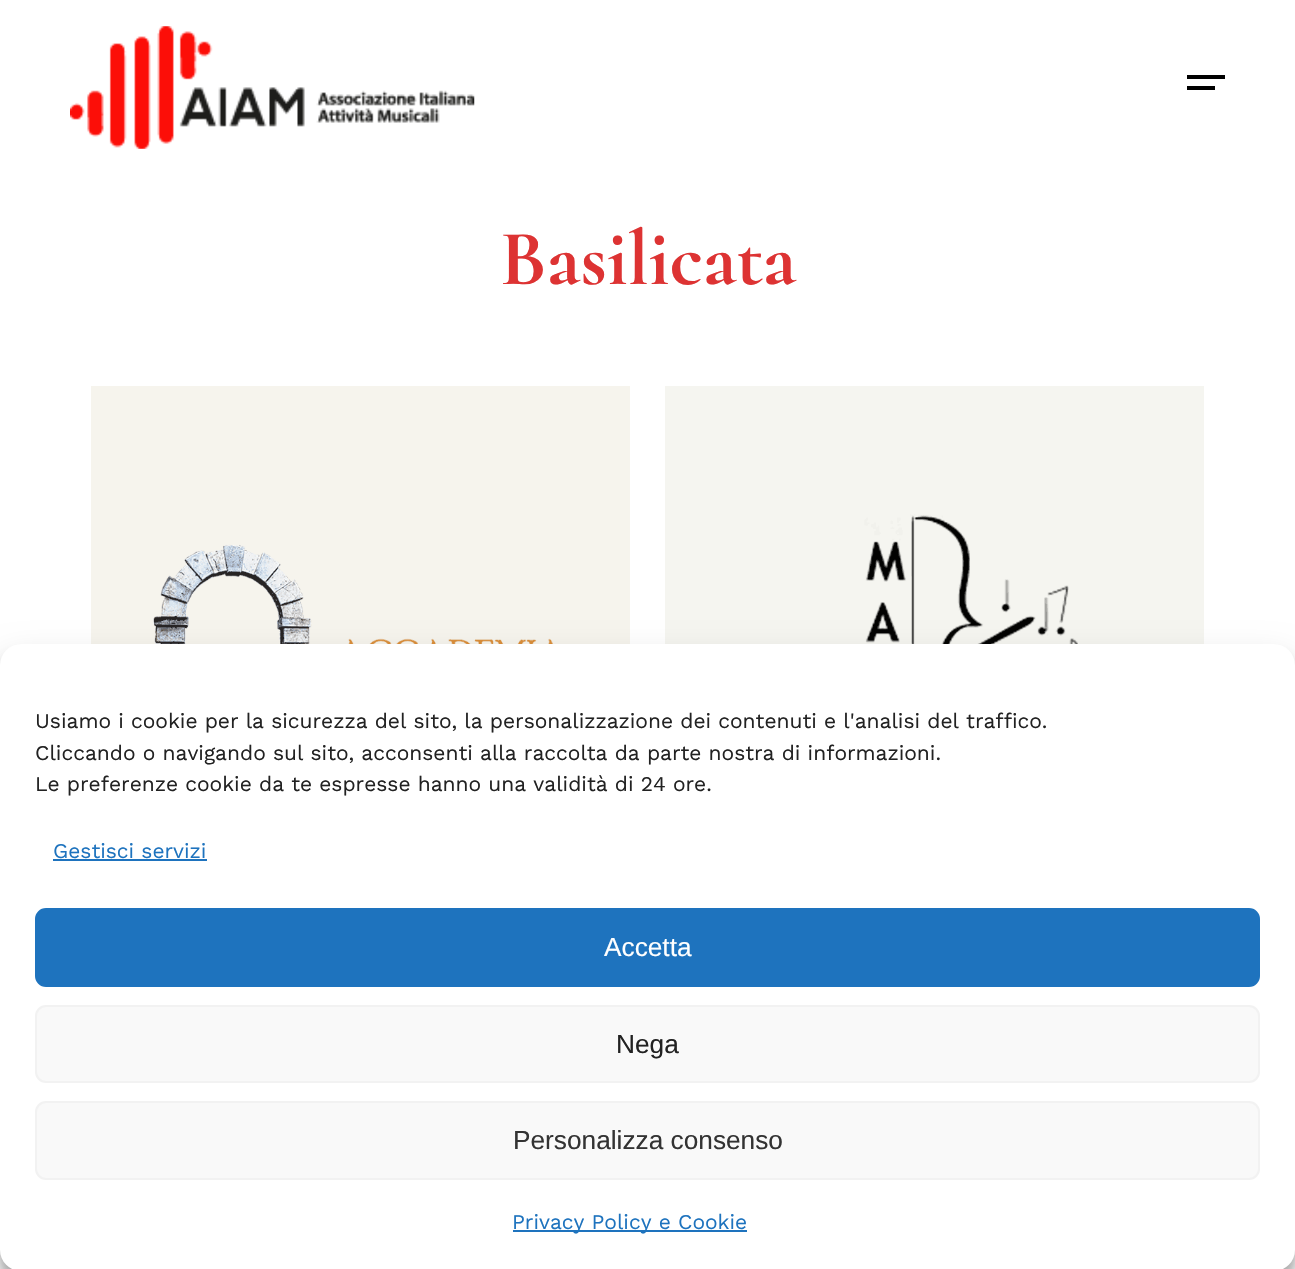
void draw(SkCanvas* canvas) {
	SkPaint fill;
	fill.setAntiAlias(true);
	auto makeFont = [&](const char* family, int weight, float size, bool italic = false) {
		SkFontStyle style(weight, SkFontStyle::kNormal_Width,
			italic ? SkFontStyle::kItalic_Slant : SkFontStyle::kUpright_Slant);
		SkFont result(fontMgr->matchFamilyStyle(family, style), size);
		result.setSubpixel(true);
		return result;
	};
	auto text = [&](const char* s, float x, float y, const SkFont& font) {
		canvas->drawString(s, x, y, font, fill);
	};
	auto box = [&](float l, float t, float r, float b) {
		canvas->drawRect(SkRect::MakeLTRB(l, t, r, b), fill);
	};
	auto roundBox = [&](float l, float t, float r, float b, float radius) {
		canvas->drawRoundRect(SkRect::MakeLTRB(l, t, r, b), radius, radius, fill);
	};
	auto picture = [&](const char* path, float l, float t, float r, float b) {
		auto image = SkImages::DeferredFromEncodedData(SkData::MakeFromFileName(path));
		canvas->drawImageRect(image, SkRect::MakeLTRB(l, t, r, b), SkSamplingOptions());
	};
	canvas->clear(0xFFFFFFFF);
	picture("image0.png", 70, 26, 475, 149);
	fill.setColor(0xFF000000);
	box(1187, 75, 1225, 79);
	box(1187, 86, 1215, 90);
	picture("image1.png", 91, 386, 630, 644);
	picture("image2.png", 665, 386, 1204, 644);
	fill.setColor(0x3B000000);
	fill.setMaskFilter(SkMaskFilter::MakeBlur(kNormal_SkBlurStyle, 5));
	canvas->drawRoundRect(SkRect::MakeLTRB(0, 655, 1295, 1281), 21, 21, fill);
	fill.setMaskFilter(nullptr);
	fill.setColor(0x30000000);
	fill.setMaskFilter(SkMaskFilter::MakeBlur(kNormal_SkBlurStyle, 17.5f));
	canvas->drawRoundRect(SkRect::MakeLTRB(0, 662, 1295, 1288), 21, 21, fill);
	fill.setMaskFilter(nullptr);
	fill.setColor(0xFFFFFFFF);
	roundBox(0, 644, 1295, 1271, 21);
	fill.setColor(0xFF1E73BE);
	box(53, 859, 207, 861);
	canvas->drawRoundRect(SkRect::MakeLTRB(36, 909, 1259, 986), 10, 10, fill);
	fill.setStyle(SkPaint::kStroke_Style);
	fill.setStrokeWidth(2);
	canvas->drawRoundRect(SkRect::MakeLTRB(36, 909, 1259, 986), 10, 10, fill);
	fill.setStyle(SkPaint::kFill_Style);
	fill.setColor(0xFFF9F9F9);
	canvas->drawRoundRect(SkRect::MakeLTRB(36, 1006, 1259, 1082), 10, 10, fill);
	fill.setStyle(SkPaint::kStroke_Style);
	fill.setColor(0xFFF2F2F2);
	canvas->drawRoundRect(SkRect::MakeLTRB(36, 1006, 1259, 1082), 10, 10, fill);
	fill.setStyle(SkPaint::kFill_Style);
	fill.setColor(0xFFF9F9F9);
	canvas->drawRoundRect(SkRect::MakeLTRB(36, 1102, 1259, 1179), 10, 10, fill);
	fill.setStyle(SkPaint::kStroke_Style);
	fill.setColor(0xFFF2F2F2);
	canvas->drawRoundRect(SkRect::MakeLTRB(36, 1102, 1259, 1179), 10, 10, fill);
	fill.setStyle(SkPaint::kFill_Style);
	fill.setColor(0xFF1E73BE);
	box(513, 1230, 747, 1232);
	auto font1 = makeFont("Cormorant", 700, 79);
	fill.setColor(0xFFDD3333);
	text("Basilicata", 500, 284, font1);
	auto font2 = makeFont("Work Sans", 400, 21);
	fill.setColor(0xFF222222);
	text("Usiamo i cookie per la sicurezza del sito, la personalizzazione dei contenuti e l'analisi del traffico.", 35, 728, font2);
	text("Cliccando o navigando sul sito, acconsenti alla raccolta da parte nostra di informazioni.", 35, 760, font2);
	text("Le preferenze cookie da te espresse hanno una validità di 24 ore.", 35, 791, font2);
	fill.setColor(0xFF1E73BE);
	text("Gestisci servizi", 53, 858, font2);
	auto font3 = makeFont("Liberation Sans", 400, 26.25f);
	fill.setColor(0xFFFFFFFF);
	text("Accetta", 604, 956, font3);
	fill.setColor(0xFF222222);
	text("Nega", 616, 1053, font3);
	fill.setColor(0xFF333333);
	text("Personalizza consenso", 513, 1149, font3);
	fill.setColor(0xFF1E73BE);
	text("Privacy Policy e Cookie", 512, 1229, font2);
}
